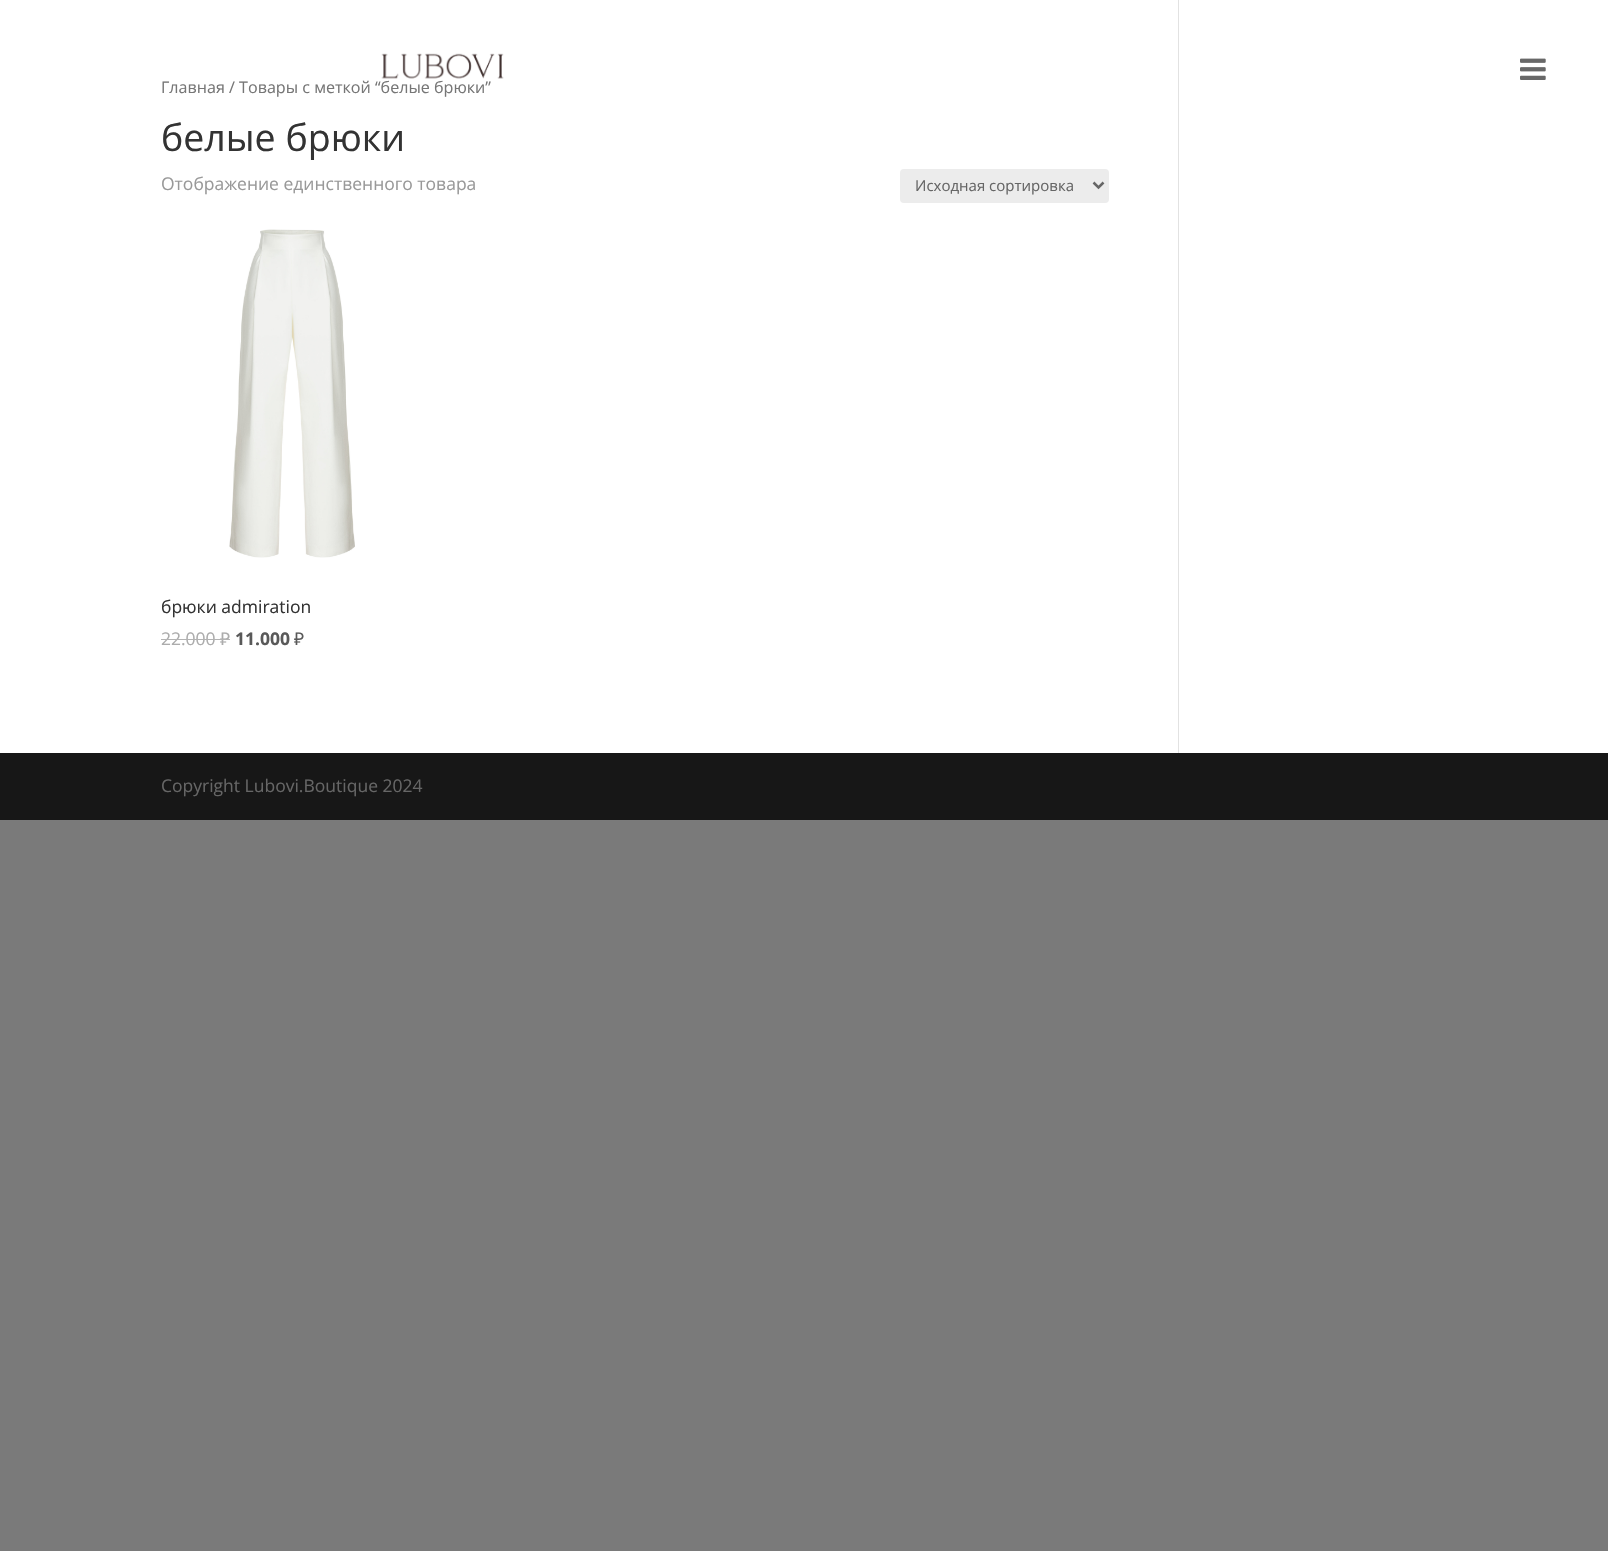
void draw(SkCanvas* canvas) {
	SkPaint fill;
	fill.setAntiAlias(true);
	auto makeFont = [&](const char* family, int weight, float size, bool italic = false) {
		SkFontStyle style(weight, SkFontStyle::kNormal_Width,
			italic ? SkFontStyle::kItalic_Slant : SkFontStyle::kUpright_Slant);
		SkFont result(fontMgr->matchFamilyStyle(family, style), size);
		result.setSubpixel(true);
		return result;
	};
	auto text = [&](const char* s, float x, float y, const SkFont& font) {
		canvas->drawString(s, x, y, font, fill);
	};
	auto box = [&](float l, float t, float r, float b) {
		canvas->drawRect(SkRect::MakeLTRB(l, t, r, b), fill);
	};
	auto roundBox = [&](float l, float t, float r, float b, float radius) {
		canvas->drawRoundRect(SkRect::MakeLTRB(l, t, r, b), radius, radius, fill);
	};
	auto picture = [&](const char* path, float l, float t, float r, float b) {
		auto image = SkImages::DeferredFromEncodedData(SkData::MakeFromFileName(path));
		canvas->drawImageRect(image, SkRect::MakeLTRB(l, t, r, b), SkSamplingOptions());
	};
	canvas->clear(0xFF7A7A7A);
	fill.setColor(0xFFFFFFFF);
	box(0, 0, 1608, 753);
	picture("image0.png", 381, 53, 504, 79);
	picture("image1.png", 1520, 58, 1546, 80);
	fill.setColor(0xFFECECEC);
	roundBox(900, 169, 1109, 203, 4);
	fill.setStyle(SkPaint::kStroke_Style);
	fill.setStrokeWidth(2.5f);
	fill.setColor(0xFF666666);
	canvas->drawPath(SkPathBuilder().moveTo(1093.5f, 182.5f).lineTo(1098.5f, 187.5f).lineTo(1103.5f, 182.5f).detach(), fill);
	picture("image2.png", 229, 229, 355, 558);
	fill.setStyle(SkPaint::kFill_Style);
	fill.setColor(0xFFE2E2E2);
	box(1178, 0, 1179, 753);
	fill.setColor(0xFF171717);
	box(0, 753, 1608, 820);
	auto font1 = makeFont("Open Sans", 400, 16.1f);
	fill.setColor(0xFF767676);
	text("Главная / Товары с меткой “белые брюки”", 161, 93, font1);
	auto font2 = makeFont("Open Sans", 400, 37.5f);
	fill.setColor(0xFF333333);
	text("белые брюки", 161, 151, font2);
	auto font3 = makeFont("Open Sans", 400, 17.5f);
	fill.setColor(0xFF999999);
	text("Отображение единственного товара", 161, 190, font3);
	auto font4 = makeFont("Open Sans", 400, 15);
	fill.setColor(0xFF666666);
	text("Исходная сортировка", 915, 191, font4);
	fill.setColor(0xFF333333);
	text("брюки admiration", 161, 613, font3);
	fill.setColor(0xFFACACAC);
	text("22.000", 161, 645, font3);
	fill.setColor(0xFFB3B3B3);
	box(161, 639, 220, 640);
	auto font5 = makeFont("Noto Sans", 400, 17.5f);
	fill.setColor(0xFFACACAC);
	text("₽", 220, 645, font5);
	fill.setColor(0xFFB3B3B3);
	box(220, 639, 230, 640);
	auto font6 = makeFont("Open Sans", 700, 17.5f);
	fill.setColor(0xFF595959);
	text("11.000", 235, 645, font6);
	text("₽", 294, 645, font5);
	fill.setColor(0xFF666666);
	text("Copyright Lubovi.Boutique 2024", 161, 792, font3);
}
